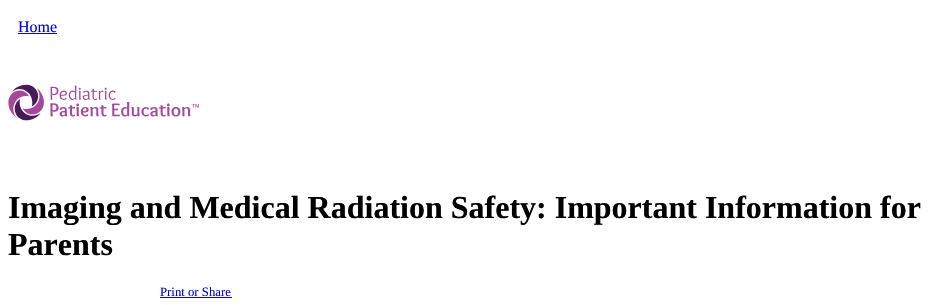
void draw(SkCanvas* canvas) {
	SkPaint fill;
	fill.setAntiAlias(true);
	auto makeFont = [&](const char* family, int weight, float size, bool italic = false) {
		SkFontStyle style(weight, SkFontStyle::kNormal_Width,
			italic ? SkFontStyle::kItalic_Slant : SkFontStyle::kUpright_Slant);
		SkFont result(fontMgr->matchFamilyStyle(family, style), size);
		result.setSubpixel(true);
		return result;
	};
	auto text = [&](const char* s, float x, float y, const SkFont& font) {
		canvas->drawString(s, x, y, font, fill);
	};
	auto box = [&](float l, float t, float r, float b) {
		canvas->drawRect(SkRect::MakeLTRB(l, t, r, b), fill);
	};
	auto picture = [&](const char* path, float l, float t, float r, float b) {
		auto image = SkImages::DeferredFromEncodedData(SkData::MakeFromFileName(path));
		canvas->drawImageRect(image, SkRect::MakeLTRB(l, t, r, b), SkSamplingOptions());
	};
	canvas->clear(0xFFFFFFFF);
	fill.setColor(0xFF0000EE);
	box(18, 33, 57, 34);
	picture("image0.png", 8, 84, 199, 121);
	box(160, 297, 232, 298);
	auto font1 = makeFont("Liberation Serif", 400, 16);
	text("Home", 18, 32, font1);
	auto font2 = makeFont("Liberation Serif", 700, 32);
	fill.setColor(0xFF000000);
	text("Imaging and Medical Radiation Safety: Important Information for", 8, 218, font2);
	text("Parents", 8, 255, font2);
	auto font3 = makeFont("Liberation Serif", 400, 12.75f);
	fill.setColor(0xFF0000EE);
	text("Print or Share", 160, 296, font3);
}
